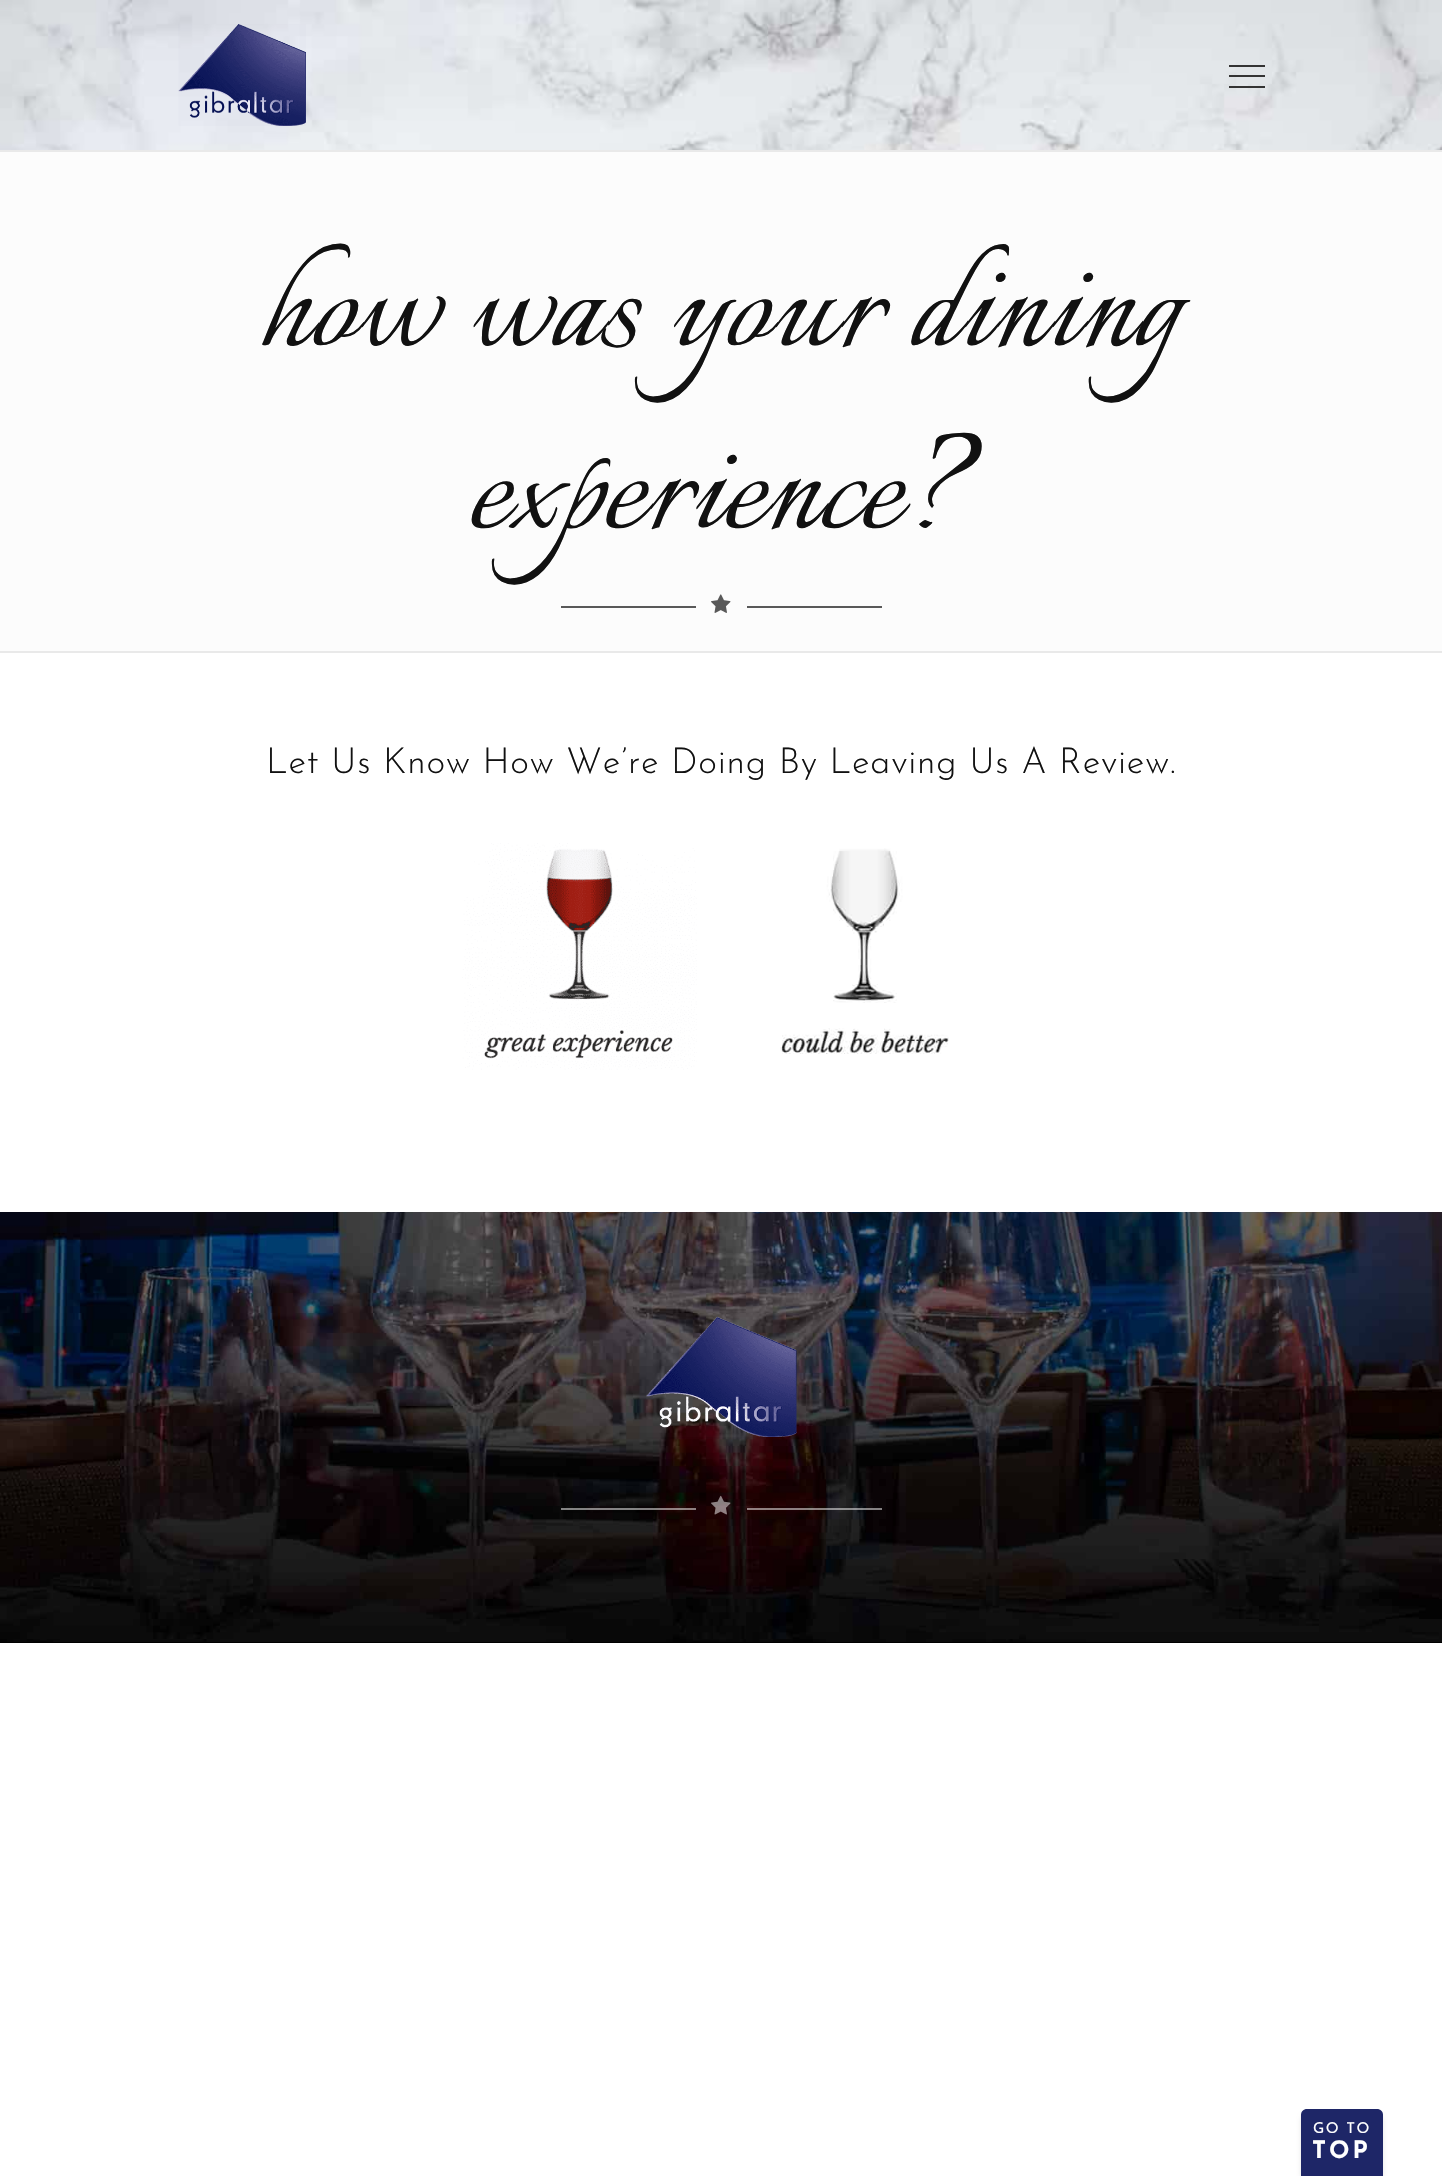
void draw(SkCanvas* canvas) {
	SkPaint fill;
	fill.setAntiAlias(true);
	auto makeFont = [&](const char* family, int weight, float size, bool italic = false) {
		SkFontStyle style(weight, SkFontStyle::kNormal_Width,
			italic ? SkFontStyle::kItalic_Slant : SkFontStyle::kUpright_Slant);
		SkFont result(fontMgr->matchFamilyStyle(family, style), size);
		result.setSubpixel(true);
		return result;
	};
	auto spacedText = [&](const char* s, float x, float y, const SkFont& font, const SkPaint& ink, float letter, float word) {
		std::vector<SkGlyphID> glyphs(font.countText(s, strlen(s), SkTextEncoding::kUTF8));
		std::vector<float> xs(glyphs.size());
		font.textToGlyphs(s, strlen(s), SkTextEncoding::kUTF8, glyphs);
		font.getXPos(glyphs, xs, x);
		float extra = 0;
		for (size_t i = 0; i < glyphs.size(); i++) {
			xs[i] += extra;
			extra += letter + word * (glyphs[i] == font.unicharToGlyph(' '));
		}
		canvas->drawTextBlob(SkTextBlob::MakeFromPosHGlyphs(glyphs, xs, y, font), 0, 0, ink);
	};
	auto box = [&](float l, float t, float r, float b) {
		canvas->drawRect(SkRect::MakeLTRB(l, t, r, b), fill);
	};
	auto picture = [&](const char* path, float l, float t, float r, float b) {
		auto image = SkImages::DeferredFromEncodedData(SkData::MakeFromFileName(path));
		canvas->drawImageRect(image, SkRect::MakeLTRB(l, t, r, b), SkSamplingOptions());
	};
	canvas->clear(0xFFFFFFFF);
	picture("image0.png", 0, 0, 1442, 150);
	picture("image1.png", 178, 24, 306, 126);
	fill.setColor(0xFF333333);
	box(1229, 65, 1265, 67);
	box(1229, 75, 1265, 77);
	box(1229, 86, 1265, 88);
	fill.setColor(0xFFFCFCFC);
	box(0, 152, 1442, 651);
	fill.setColor(0xFFE9E9E9);
	box(0, 150, 1442, 152);
	box(0, 651, 1442, 653);
	fill.setColor(0xFF595959);
	box(561, 606, 696, 608);
	picture("image2.png", 711, 594, 731, 613);
	box(747, 606, 882, 608);
	picture("image3.png", 462, 843, 697, 1070);
	picture("image4.png", 780, 848, 949, 1054);
	fill.setColor(0xFF000000);
	box(0, 1642, 1442, 1643);
	picture("image5.png", 0, 1212, 1442, 1642);
	picture("image6.png", 646, 1317, 797, 1437);
	fill.setColor(0x80FFFFFF);
	box(561, 1508, 696, 1510);
	picture("image7.png", 711, 1495, 731, 1515);
	box(747, 1508, 882, 1510);
	fill.setColor(0x1A000000);
	fill.setMaskFilter(SkMaskFilter::MakeBlur(kNormal_SkBlurStyle, 2));
	canvas->drawRoundRect(SkRect::MakeLTRB(1301, 2114, 1383, 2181), 6, 6, fill);
	fill.setMaskFilter(nullptr);
	fill.setColor(0xFF1E2667);
	canvas->drawPath(SkPathBuilder().moveTo(1307, 2109).lineTo(1377, 2109).cubicTo(1380.5f, 2109, 1383, 2111.5f, 1383, 2115).lineTo(1383, 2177).lineTo(1301, 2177).lineTo(1301, 2115).cubicTo(1301, 2111.5f, 1303.5f, 2109, 1307, 2109).close().detach(), fill);
	auto font1 = makeFont("Italianno", 400, 165);
	fill.setColor(0xFF111111);
	spacedText("how was your dining", 263, 345, font1, fill, 0.75f, 0);
	spacedText("experience?", 469, 527, font1, fill, 0.75f, 0);
	auto font2 = makeFont("Josefin Sans", 300, 36);
	spacedText("Let Us Know How We’re Doing By Leaving Us A Review.", 266, 773, font2, fill, 0.75f, 0);
	auto font3 = makeFont("Josefin Sans", 400, 15);
	fill.setColor(0xFFFFFFFF);
	spacedText("GO TO", 1313, 2133, font3, fill, 1.5f, 0);
	auto font4 = makeFont("Josefin Sans", 700, 24);
	spacedText("TOP", 1312, 2158, font4, fill, 3, 0);
}
